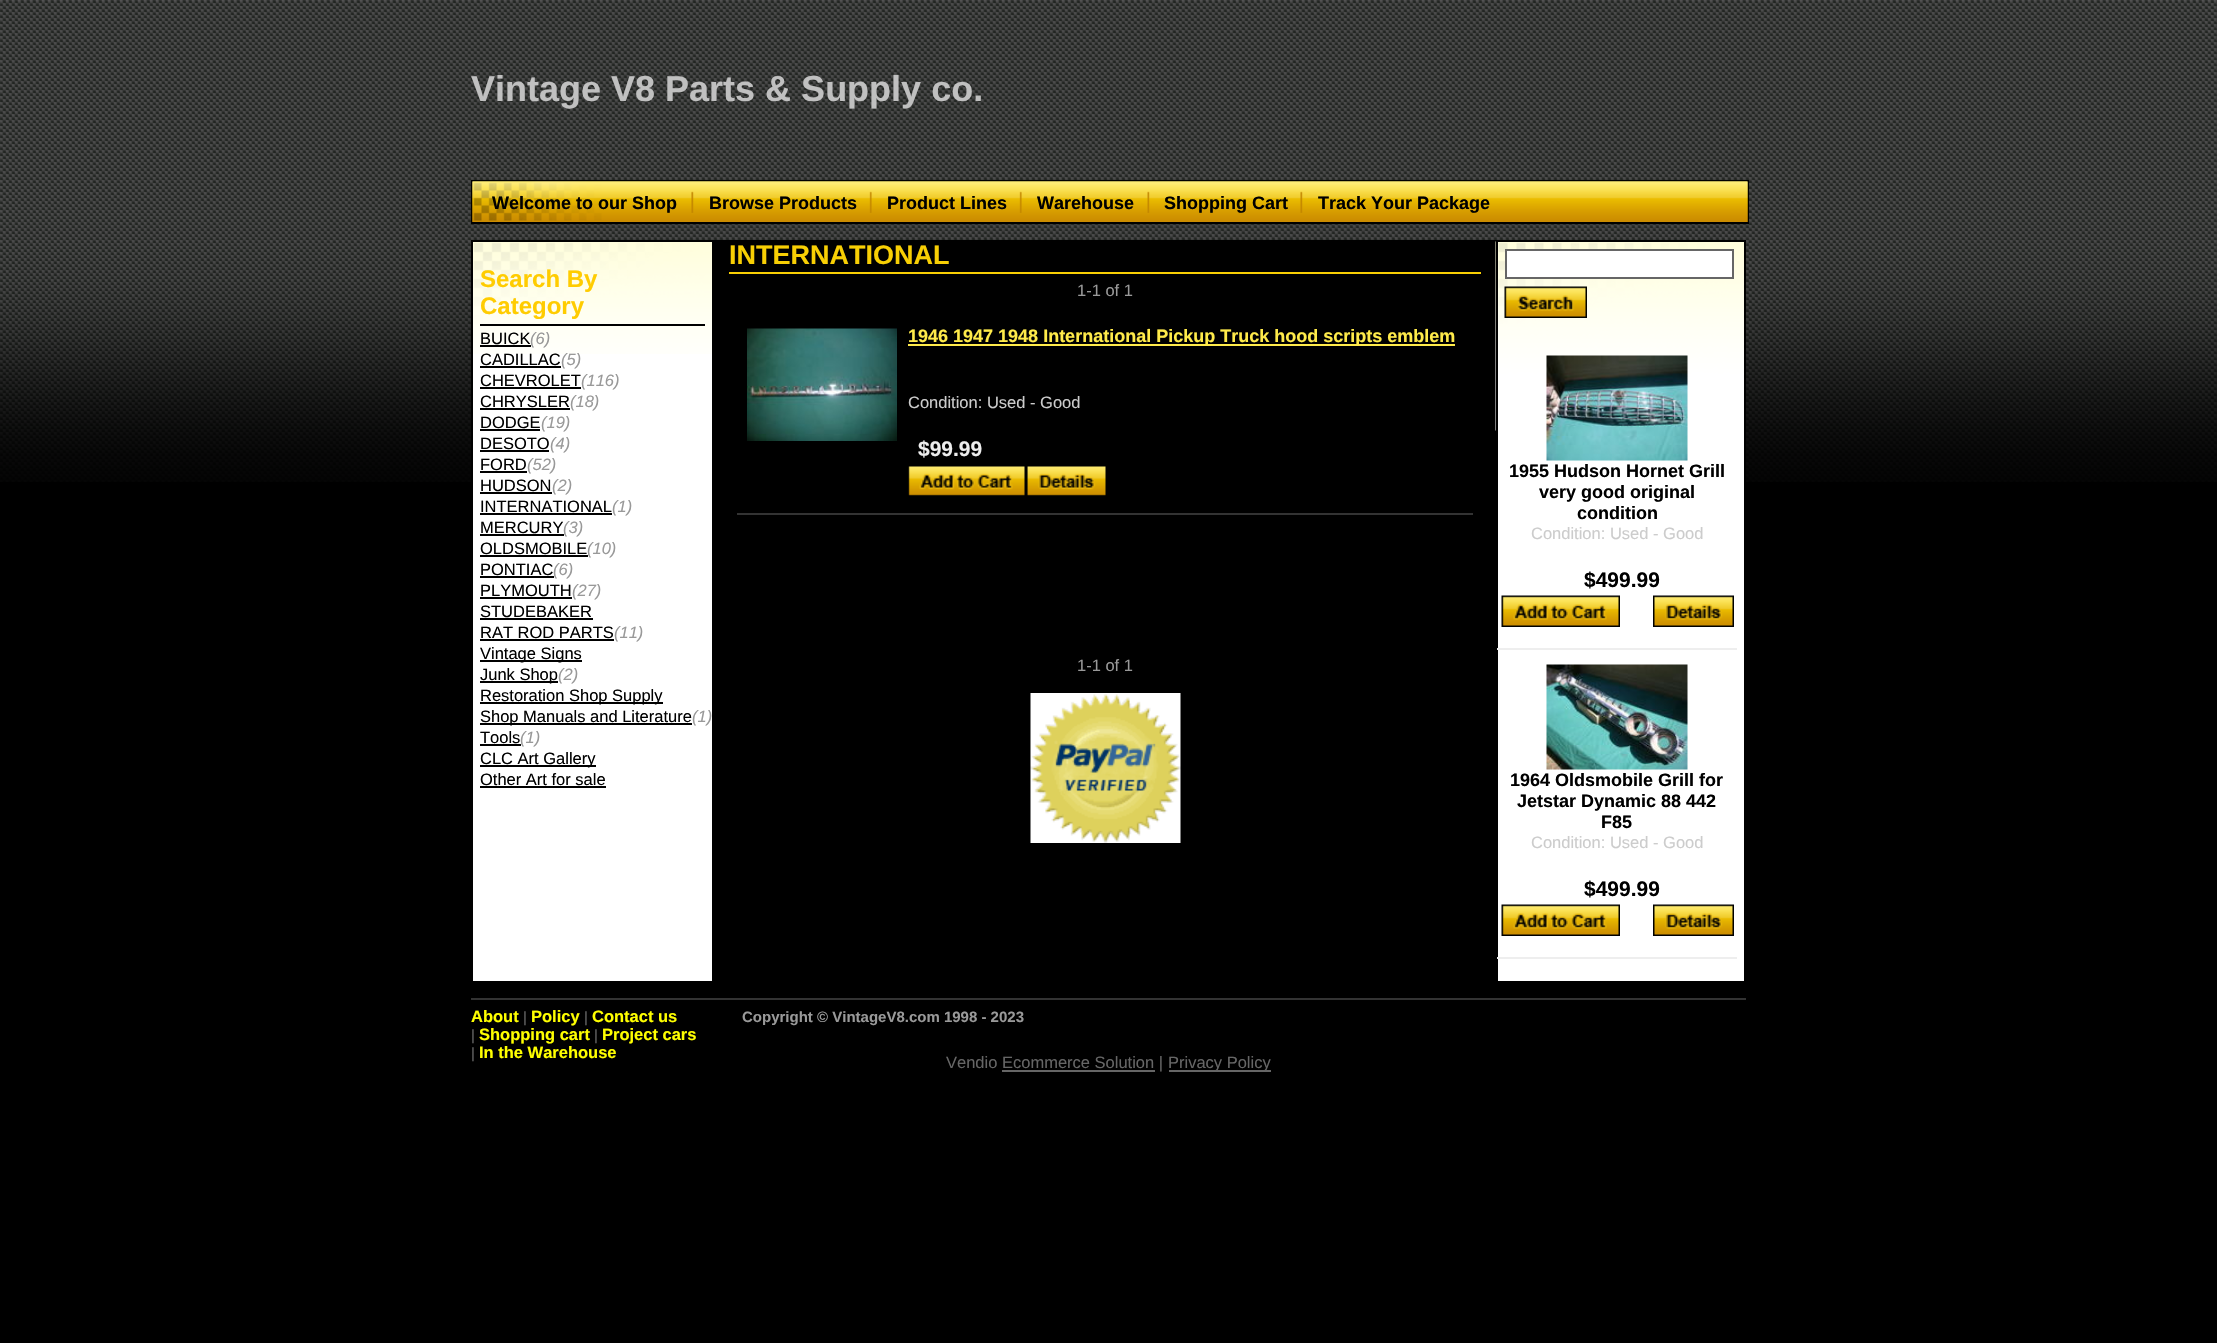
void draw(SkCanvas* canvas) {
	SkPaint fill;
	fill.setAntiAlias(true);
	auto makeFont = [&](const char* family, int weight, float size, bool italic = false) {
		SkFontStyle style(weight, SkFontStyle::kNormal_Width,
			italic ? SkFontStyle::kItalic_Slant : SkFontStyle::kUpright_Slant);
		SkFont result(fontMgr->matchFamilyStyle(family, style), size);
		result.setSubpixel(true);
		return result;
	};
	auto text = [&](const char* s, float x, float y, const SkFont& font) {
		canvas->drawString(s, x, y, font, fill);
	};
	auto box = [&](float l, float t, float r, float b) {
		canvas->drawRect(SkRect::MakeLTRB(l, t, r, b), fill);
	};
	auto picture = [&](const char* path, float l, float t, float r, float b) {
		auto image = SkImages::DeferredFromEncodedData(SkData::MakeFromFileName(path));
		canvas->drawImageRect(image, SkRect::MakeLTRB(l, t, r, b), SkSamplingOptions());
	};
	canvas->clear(0xFF000000);
	picture("image0.png", 0, 0, 2217, 482);
	fill.setStyle(SkPaint::kStroke_Style);
	fill.setStrokeWidth(2);
	fill.setColor(0xFF000000);
	canvas->drawRect(SkRect::MakeLTRB(472, 181, 1748, 223), fill);
	picture("image1.png", 472, 181, 1748, 222);
	picture("image2.png", 472, 181, 1748, 222);
	picture("image3.png", 691, 191, 694, 213);
	picture("image4.png", 869, 191, 872, 213);
	picture("image4.png", 1019, 191, 1022, 213);
	picture("image5.png", 1147, 191, 1150, 213);
	picture("image3.png", 1300, 191, 1303, 213);
	fill.setStyle(SkPaint::kFill_Style);
	fill.setColor(0xFFFFFFFF);
	box(473, 354, 712, 981);
	picture("image6.png", 473, 242, 712, 354);
	fill.setStyle(SkPaint::kStroke_Style);
	fill.setColor(0xFF000000);
	canvas->drawRect(SkRect::MakeLTRB(472, 241, 713, 982), fill);
	fill.setStyle(SkPaint::kFill_Style);
	box(480, 324, 705, 326);
	box(480, 345, 531, 347);
	box(480, 366, 561, 368);
	box(480, 387, 581, 389);
	box(480, 408, 570, 410);
	box(480, 429, 540, 431);
	box(480, 450, 549, 452);
	box(480, 471, 527, 473);
	box(480, 492, 552, 494);
	box(480, 513, 612, 515);
	box(480, 534, 564, 536);
	box(480, 555, 588, 557);
	box(480, 576, 554, 578);
	box(480, 597, 572, 599);
	box(480, 618, 593, 620);
	box(480, 639, 614, 641);
	box(480, 660, 582, 662);
	box(480, 681, 558, 683);
	box(480, 702, 663, 704);
	box(480, 723, 692, 725);
	box(480, 744, 521, 746);
	box(480, 765, 596, 767);
	box(480, 786, 606, 788);
	box(714, 240, 1496, 482);
	fill.setColor(0xFFF8CF04);
	box(729, 272, 1481, 274);
	fill.setColor(0xFF333333);
	box(737, 513, 1473, 515);
	picture("image7.png", 747, 328, 897, 441);
	fill.setColor(0xFFFFEB4A);
	box(908, 344, 1455, 346);
	picture("image8.png", 908, 466, 1025, 496);
	picture("image9.png", 1027, 466, 1106, 496);
	picture("image10.png", 1030, 693, 1181, 843);
	fill.setColor(0xFFFFFFFF);
	box(1498, 430, 1744, 981);
	picture("image11.png", 1495, 241, 1744, 431);
	fill.setStyle(SkPaint::kStroke_Style);
	fill.setColor(0xFF000000);
	canvas->drawRect(SkRect::MakeLTRB(1497, 241, 1745, 982), fill);
	fill.setStyle(SkPaint::kFill_Style);
	fill.setColor(0xFFFFFFFF);
	canvas->drawRect(SkRect::MakeLTRB(1506, 250, 1733, 278), fill);
	fill.setStyle(SkPaint::kStroke_Style);
	fill.setColor(0xFF666666);
	canvas->drawRect(SkRect::MakeLTRB(1506, 250, 1733, 278), fill);
	picture("image12.png", 1504, 286, 1587, 318);
	fill.setStyle(SkPaint::kFill_Style);
	fill.setColor(0xFFEEEEEE);
	box(1497, 648, 1737, 650);
	picture("image13.png", 1546, 355, 1688, 461);
	picture("image14.png", 1501, 595, 1620, 627);
	picture("image15.png", 1653, 595, 1734, 627);
	box(1497, 957, 1737, 959);
	picture("image16.png", 1546, 664, 1688, 770);
	picture("image14.png", 1501, 904, 1620, 936);
	picture("image15.png", 1653, 904, 1734, 936);
	fill.setColor(0xFF333333);
	box(471, 998, 1746, 1000);
	fill.setColor(0xFF666666);
	box(1169, 1070, 1271, 1072);
	box(1002, 1070, 1155, 1072);
	auto font1 = makeFont("Liberation Sans", 700, 36);
	fill.setColor(0xFFC0C0C0);
	text("Vintage V8 Parts & Supply co.", 471, 101, font1);
	auto font2 = makeFont("Liberation Sans", 700, 18);
	fill.setColor(0xFF000000);
	text("Welcome to our Shop", 492, 209, font2);
	text("Browse Products", 709, 209, font2);
	text("Product Lines", 887, 209, font2);
	text("Warehouse", 1037, 209, font2);
	text("Shopping Cart", 1164, 209, font2);
	text("Track Your Package", 1318, 209, font2);
	auto font3 = makeFont("Liberation Sans", 700, 24);
	fill.setColor(0xFFFFCC00);
	text("Search By", 480, 287, font3);
	text("Category", 480, 314, font3);
	auto font4 = makeFont("Liberation Sans", 400, 16.5f);
	fill.setColor(0xFF000000);
	text("BUICK", 480, 344, font4);
	auto font5 = makeFont("Liberation Sans", 400, 16.5f, true);
	fill.setColor(0xFF999999);
	text("(6)", 530, 344, font5);
	fill.setColor(0xFF000000);
	text("CADILLAC", 480, 365, font4);
	fill.setColor(0xFF999999);
	text("(5)", 561, 365, font5);
	fill.setColor(0xFF000000);
	text("CHEVROLET", 480, 386, font4);
	fill.setColor(0xFF999999);
	text("(116)", 581, 386, font5);
	fill.setColor(0xFF000000);
	text("CHRYSLER", 480, 407, font4);
	fill.setColor(0xFF999999);
	text("(18)", 570, 407, font5);
	fill.setColor(0xFF000000);
	text("DODGE", 480, 428, font4);
	fill.setColor(0xFF999999);
	text("(19)", 541, 428, font5);
	fill.setColor(0xFF000000);
	text("DESOTO", 480, 449, font4);
	fill.setColor(0xFF999999);
	text("(4)", 550, 449, font5);
	fill.setColor(0xFF000000);
	text("FORD", 480, 470, font4);
	fill.setColor(0xFF999999);
	text("(52)", 527, 470, font5);
	fill.setColor(0xFF000000);
	text("HUDSON", 480, 491, font4);
	fill.setColor(0xFF999999);
	text("(2)", 552, 491, font5);
	fill.setColor(0xFF000000);
	text("INTERNATIONAL", 480, 512, font4);
	fill.setColor(0xFF999999);
	text("(1)", 612, 512, font5);
	fill.setColor(0xFF000000);
	text("MERCURY", 480, 533, font4);
	fill.setColor(0xFF999999);
	text("(3)", 563, 533, font5);
	fill.setColor(0xFF000000);
	text("OLDSMOBILE", 480, 554, font4);
	fill.setColor(0xFF999999);
	text("(10)", 587, 554, font5);
	fill.setColor(0xFF000000);
	text("PONTIAC", 480, 575, font4);
	fill.setColor(0xFF999999);
	text("(6)", 553, 575, font5);
	fill.setColor(0xFF000000);
	text("PLYMOUTH", 480, 596, font4);
	fill.setColor(0xFF999999);
	text("(27)", 572, 596, font5);
	fill.setColor(0xFF000000);
	text("STUDEBAKER", 480, 617, font4);
	text("RAT ROD PARTS", 480, 638, font4);
	fill.setColor(0xFF999999);
	text("(11)", 614, 638, font5);
	fill.setColor(0xFF000000);
	text("Vintage Signs", 480, 659, font4);
	text("Junk Shop", 480, 680, font4);
	fill.setColor(0xFF999999);
	text("(2)", 558, 680, font5);
	fill.setColor(0xFF000000);
	text("Restoration Shop Supply", 480, 701, font4);
	text("Shop Manuals and Literature", 480, 722, font4);
	fill.setColor(0xFF999999);
	text("(1)", 692, 722, font5);
	fill.setColor(0xFF000000);
	text("Tools", 480, 743, font4);
	fill.setColor(0xFF999999);
	text("(1)", 520, 743, font5);
	fill.setColor(0xFF000000);
	text("CLC Art Gallery", 480, 764, font4);
	text("Other Art for sale", 480, 785, font4);
	auto font6 = makeFont("Liberation Sans", 700, 27);
	fill.setColor(0xFFF8CF04);
	text("INTERNATIONAL", 729, 264, font6);
	fill.setColor(0xFF999999);
	text("1-1 of 1", 1077, 296, font4);
	fill.setColor(0xFFFFEB4A);
	text("1946 1947 1948 International Pickup Truck hood scripts emblem", 908, 342, font2);
	fill.setColor(0xFFCCCCCC);
	text("Condition: Used - Good", 908, 408, font4);
	auto font7 = makeFont("Liberation Sans", 700, 21);
	fill.setColor(0xFFEEEEEE);
	text("$99.99", 918, 456, font7);
	fill.setColor(0xFF999999);
	text("1-1 of 1", 1077, 671, font4);
	fill.setColor(0xFF000000);
	text("1955 Hudson Hornet Grill", 1509, 477, font2);
	text("very good original", 1539, 498, font2);
	text("condition", 1577, 519, font2);
	fill.setColor(0xFFCCCCCC);
	text("Condition: Used - Good", 1531, 539, font4);
	fill.setColor(0xFF000000);
	text("$499.99", 1584, 587, font7);
	text("1964 Oldsmobile Grill for", 1510, 786, font2);
	text("Jetstar Dynamic 88 442", 1517, 807, font2);
	text("F85", 1601, 828, font2);
	fill.setColor(0xFFCCCCCC);
	text("Condition: Used - Good", 1531, 848, font4);
	fill.setColor(0xFF000000);
	text("$499.99", 1584, 896, font7);
	auto font8 = makeFont("Liberation Sans", 700, 16.5f);
	fill.setColor(0xFFFFFF00);
	text("About", 471, 1022, font8);
	auto font9 = makeFont("Liberation Sans", 400, 15);
	fill.setColor(0xFF666666);
	text("|", 523, 1022, font9);
	fill.setColor(0xFFFFFF00);
	text("Policy", 531, 1022, font8);
	fill.setColor(0xFF666666);
	text("|", 584, 1022, font9);
	fill.setColor(0xFFFFFF00);
	text("Contact us", 592, 1022, font8);
	fill.setColor(0xFF666666);
	text("|", 471, 1040, font9);
	fill.setColor(0xFFFFFF00);
	text("Shopping cart", 479, 1040, font8);
	fill.setColor(0xFF666666);
	text("|", 594, 1040, font9);
	fill.setColor(0xFFFFFF00);
	text("Project cars", 602, 1040, font8);
	fill.setColor(0xFF666666);
	text("|", 471, 1058, font9);
	fill.setColor(0xFFFFFF00);
	text("In the Warehouse", 479, 1058, font8);
	auto font10 = makeFont("Liberation Sans", 700, 15);
	fill.setColor(0xFF999999);
	text("Copyright © VintageV8.com 1998 - 2023", 742, 1022, font10);
	fill.setColor(0xFF666666);
	text("Vendio Ecommerce Solution |", 946, 1068, font4);
	text("Privacy Policy", 1168, 1068, font4);
}
